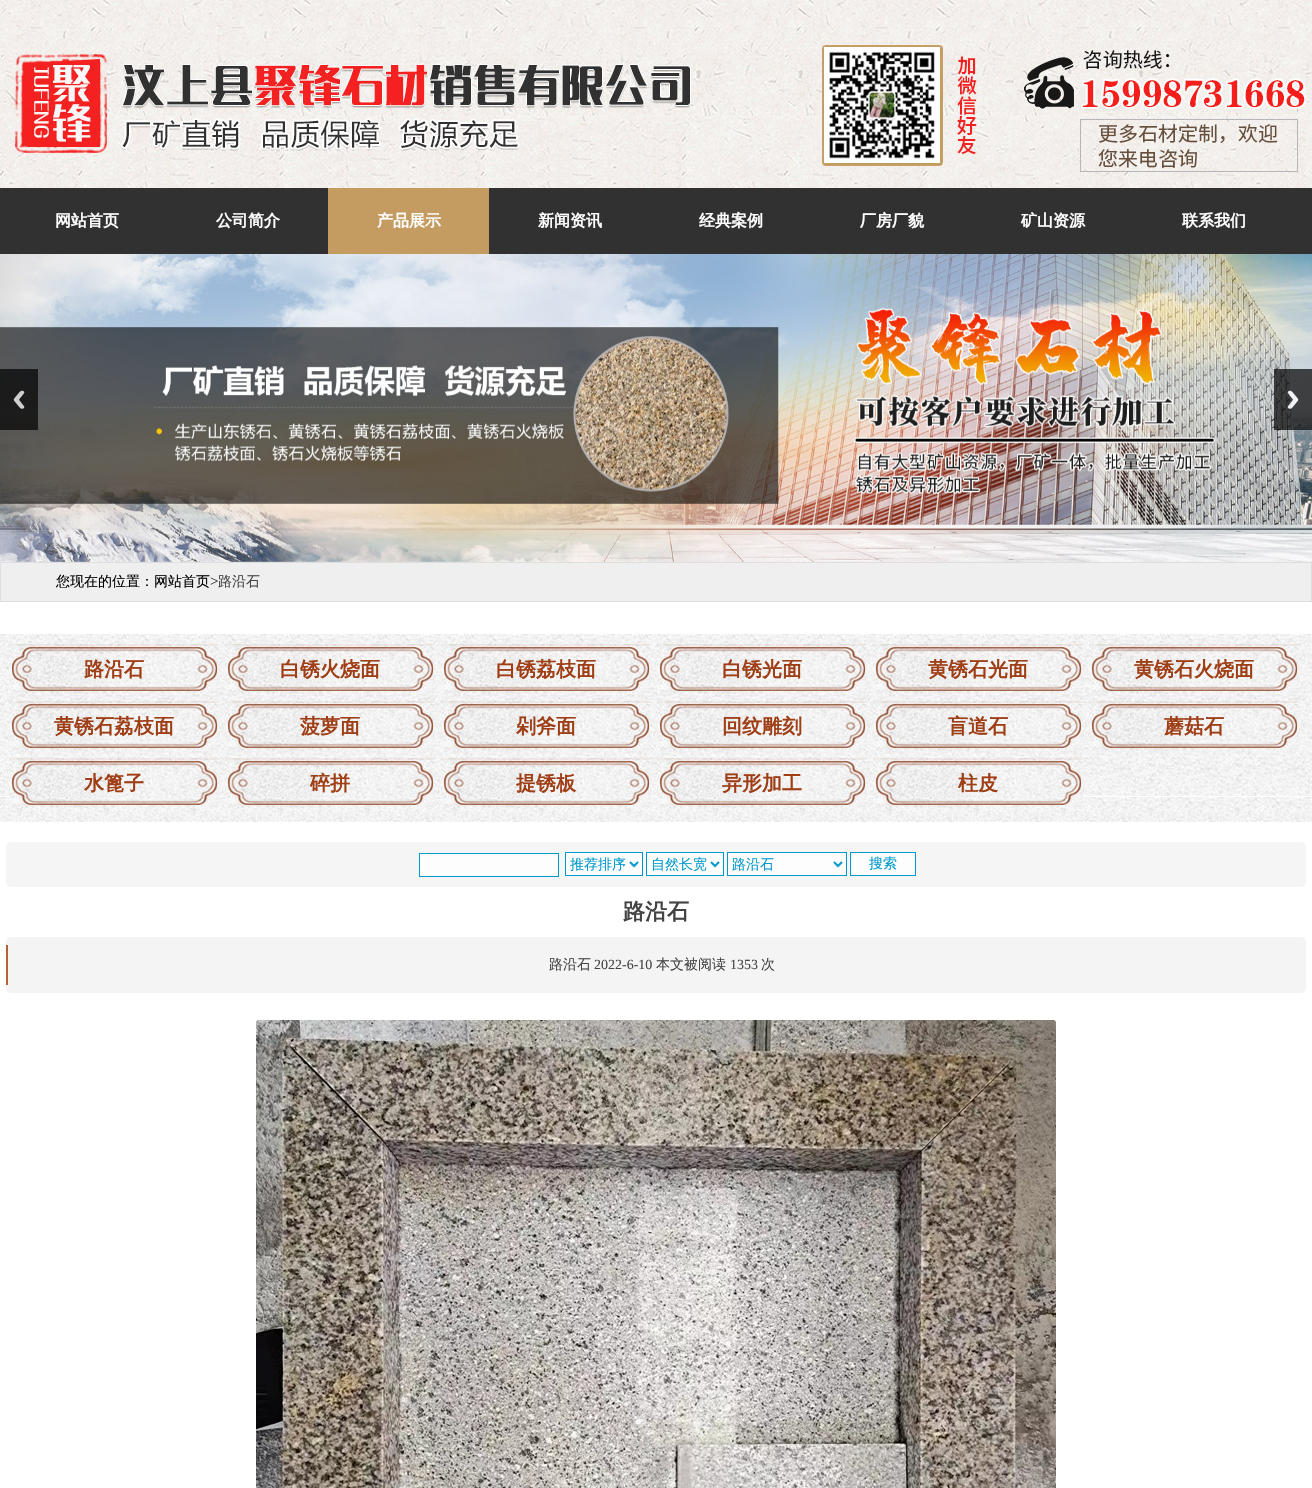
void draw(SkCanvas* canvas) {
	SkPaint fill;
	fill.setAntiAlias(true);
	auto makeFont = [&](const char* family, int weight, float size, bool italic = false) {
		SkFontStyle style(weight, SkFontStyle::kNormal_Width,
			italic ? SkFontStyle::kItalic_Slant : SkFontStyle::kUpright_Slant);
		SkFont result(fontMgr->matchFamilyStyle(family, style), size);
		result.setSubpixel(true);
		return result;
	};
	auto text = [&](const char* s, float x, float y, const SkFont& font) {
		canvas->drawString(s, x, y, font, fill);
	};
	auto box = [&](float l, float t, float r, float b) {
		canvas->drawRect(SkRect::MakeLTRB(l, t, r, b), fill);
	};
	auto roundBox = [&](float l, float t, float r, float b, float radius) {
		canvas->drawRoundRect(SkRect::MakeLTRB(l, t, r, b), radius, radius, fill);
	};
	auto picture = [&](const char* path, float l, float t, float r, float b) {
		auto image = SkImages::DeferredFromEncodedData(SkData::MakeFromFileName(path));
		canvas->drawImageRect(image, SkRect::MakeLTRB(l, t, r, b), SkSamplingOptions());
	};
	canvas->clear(0xFFFFFFFF);
	picture("image0.png", 0, 0, 1312, 188);
	picture("image1.png", 6, 0, 708, 188);
	picture("image2.png", 813, 0, 1306, 188);
	fill.setColor(0xFF313131);
	box(0, 188, 1312, 254);
	fill.setColor(0xFFC49C61);
	box(328, 188, 489, 254);
	picture("image3.png", 0, 254, 1312, 562);
	picture("image4.png", 0, 369, 38, 430);
	picture("image5.png", 1274, 369, 1312, 430);
	fill.setColor(0xFFEFEFEF);
	canvas->drawRect(SkRect::MakeLTRB(0.5f, 562.5f, 1311.5f, 601.5f), fill);
	fill.setStyle(SkPaint::kStroke_Style);
	fill.setStrokeWidth(1);
	fill.setColor(0xFFDFDEDE);
	canvas->drawRect(SkRect::MakeLTRB(0.5f, 562.5f, 1311.5f, 601.5f), fill);
	picture("image6.png", 0, 634, 1312, 822);
	picture("image7.png", 9, 644, 219, 694);
	picture("image7.png", 225, 644, 435, 694);
	picture("image7.png", 441, 644, 651, 694);
	picture("image7.png", 657, 644, 867, 694);
	picture("image7.png", 873, 644, 1083, 694);
	picture("image7.png", 1089, 644, 1299, 694);
	picture("image7.png", 9, 701, 219, 751);
	picture("image7.png", 225, 701, 435, 751);
	picture("image7.png", 441, 701, 651, 751);
	picture("image7.png", 657, 701, 867, 751);
	picture("image7.png", 873, 701, 1083, 751);
	picture("image7.png", 1089, 701, 1299, 751);
	picture("image7.png", 9, 758, 219, 808);
	picture("image7.png", 225, 758, 435, 808);
	picture("image7.png", 441, 758, 651, 808);
	picture("image7.png", 657, 758, 867, 808);
	picture("image7.png", 873, 758, 1083, 808);
	fill.setStyle(SkPaint::kFill_Style);
	fill.setColor(0xFFF5F5F5);
	roundBox(6, 842, 1306, 887, 5);
	fill.setColor(0xFFFDFDFD);
	canvas->drawRect(SkRect::MakeLTRB(419.5f, 853.5f, 558.5f, 876.5f), fill);
	fill.setStyle(SkPaint::kStroke_Style);
	fill.setColor(0xFF0099CC);
	canvas->drawRect(SkRect::MakeLTRB(419.5f, 853.5f, 558.5f, 876.5f), fill);
	fill.setStyle(SkPaint::kFill_Style);
	fill.setColor(0xFFFDFDFD);
	canvas->drawRect(SkRect::MakeLTRB(565.5f, 852.5f, 642.5f, 875.5f), fill);
	fill.setStyle(SkPaint::kStroke_Style);
	fill.setColor(0xFF0099CC);
	canvas->drawRect(SkRect::MakeLTRB(565.5f, 852.5f, 642.5f, 875.5f), fill);
	fill.setStrokeWidth(2);
	canvas->drawPath(SkPathBuilder().moveTo(630, 862).lineTo(634, 866).lineTo(638, 862).detach(), fill);
	fill.setStyle(SkPaint::kFill_Style);
	fill.setColor(0xFFFDFDFD);
	canvas->drawRect(SkRect::MakeLTRB(646.5f, 852.5f, 723.5f, 875.5f), fill);
	fill.setStyle(SkPaint::kStroke_Style);
	fill.setStrokeWidth(1);
	fill.setColor(0xFF0099CC);
	canvas->drawRect(SkRect::MakeLTRB(646.5f, 852.5f, 723.5f, 875.5f), fill);
	fill.setStrokeWidth(2);
	canvas->drawPath(SkPathBuilder().moveTo(711, 862).lineTo(715, 866).lineTo(719, 862).detach(), fill);
	fill.setStyle(SkPaint::kFill_Style);
	fill.setColor(0xFFFDFDFD);
	canvas->drawRect(SkRect::MakeLTRB(727.5f, 852.5f, 846.5f, 875.5f), fill);
	fill.setStyle(SkPaint::kStroke_Style);
	fill.setStrokeWidth(1);
	fill.setColor(0xFF0099CC);
	canvas->drawRect(SkRect::MakeLTRB(727.5f, 852.5f, 846.5f, 875.5f), fill);
	fill.setStrokeWidth(2);
	canvas->drawPath(SkPathBuilder().moveTo(834, 862).lineTo(838, 866).lineTo(842, 862).detach(), fill);
	fill.setStyle(SkPaint::kFill_Style);
	fill.setColor(0xFFFDFDFD);
	canvas->drawRect(SkRect::MakeLTRB(850.5f, 852.5f, 915.5f, 875.5f), fill);
	fill.setStyle(SkPaint::kStroke_Style);
	fill.setStrokeWidth(1);
	fill.setColor(0xFF0099CC);
	canvas->drawRect(SkRect::MakeLTRB(850.5f, 852.5f, 915.5f, 875.5f), fill);
	fill.setStyle(SkPaint::kFill_Style);
	fill.setColor(0xFFF5F4F4);
	roundBox(6, 937, 1306, 993, 5);
	fill.setColor(0xFFB46231);
	box(6, 945, 8, 985);
	picture("image8.png", 256, 1020, 1056, 1488);
	auto font1 = makeFont("WenQuanYi Zen Hei", 700, 16);
	fill.setColor(0xFFFFFFFF);
	text("网站首页", 55, 226, font1);
	text("公司简介", 216, 226, font1);
	text("产品展示", 377, 226, font1);
	text("新闻资讯", 538, 226, font1);
	text("经典案例", 699, 226, font1);
	text("厂房厂貌", 860, 226, font1);
	text("矿山资源", 1021, 226, font1);
	text("联系我们", 1182, 226, font1);
	auto font2 = makeFont("WenQuanYi Zen Hei", 500, 14);
	fill.setColor(0xFF000000);
	text("您现在的位置：网站首页", 56, 586, font2);
	auto font3 = makeFont("Liberation Serif", 400, 15);
	fill.setColor(0xFF333333);
	text(">", 210, 586, font3);
	fill.setColor(0xFF444444);
	text("路沿石", 218, 586, font2);
	auto font4 = makeFont("WenQuanYi Zen Hei", 700, 20);
	fill.setColor(0xFF9F3E15);
	text("路沿石", 84, 676, font4);
	text("白锈火烧面", 280, 676, font4);
	text("白锈荔枝面", 496, 676, font4);
	text("白锈光面", 722, 676, font4);
	text("黄锈石光面", 928, 676, font4);
	text("黄锈石火烧面", 1134, 676, font4);
	text("黄锈石荔枝面", 54, 733, font4);
	text("菠萝面", 300, 733, font4);
	text("剁斧面", 516, 733, font4);
	text("回纹雕刻", 722, 733, font4);
	text("盲道石", 948, 733, font4);
	text("蘑菇石", 1164, 733, font4);
	text("水篦子", 84, 790, font4);
	text("碎拼", 310, 790, font4);
	text("提锈板", 516, 790, font4);
	text("异形加工", 722, 790, font4);
	text("柱皮", 958, 790, font4);
	fill.setColor(0xFF0099CC);
	text("推荐排序", 570, 869, font2);
	text("自然长宽", 651, 869, font2);
	text("路沿石", 732, 869, font2);
	text("搜索", 869, 868, font2);
	auto font5 = makeFont("WenQuanYi Zen Hei", 700, 22);
	fill.setColor(0xFF444444);
	text("路沿石", 623, 919, font5);
	text("路沿石", 549, 969, font2);
	auto font6 = makeFont("Liberation Serif", 400, 14);
	text("2022-6-10", 594, 969, font6);
	text("本文被阅读", 656, 969, font2);
	text("1353", 730, 969, font6);
	text("次", 761, 969, font2);
}
